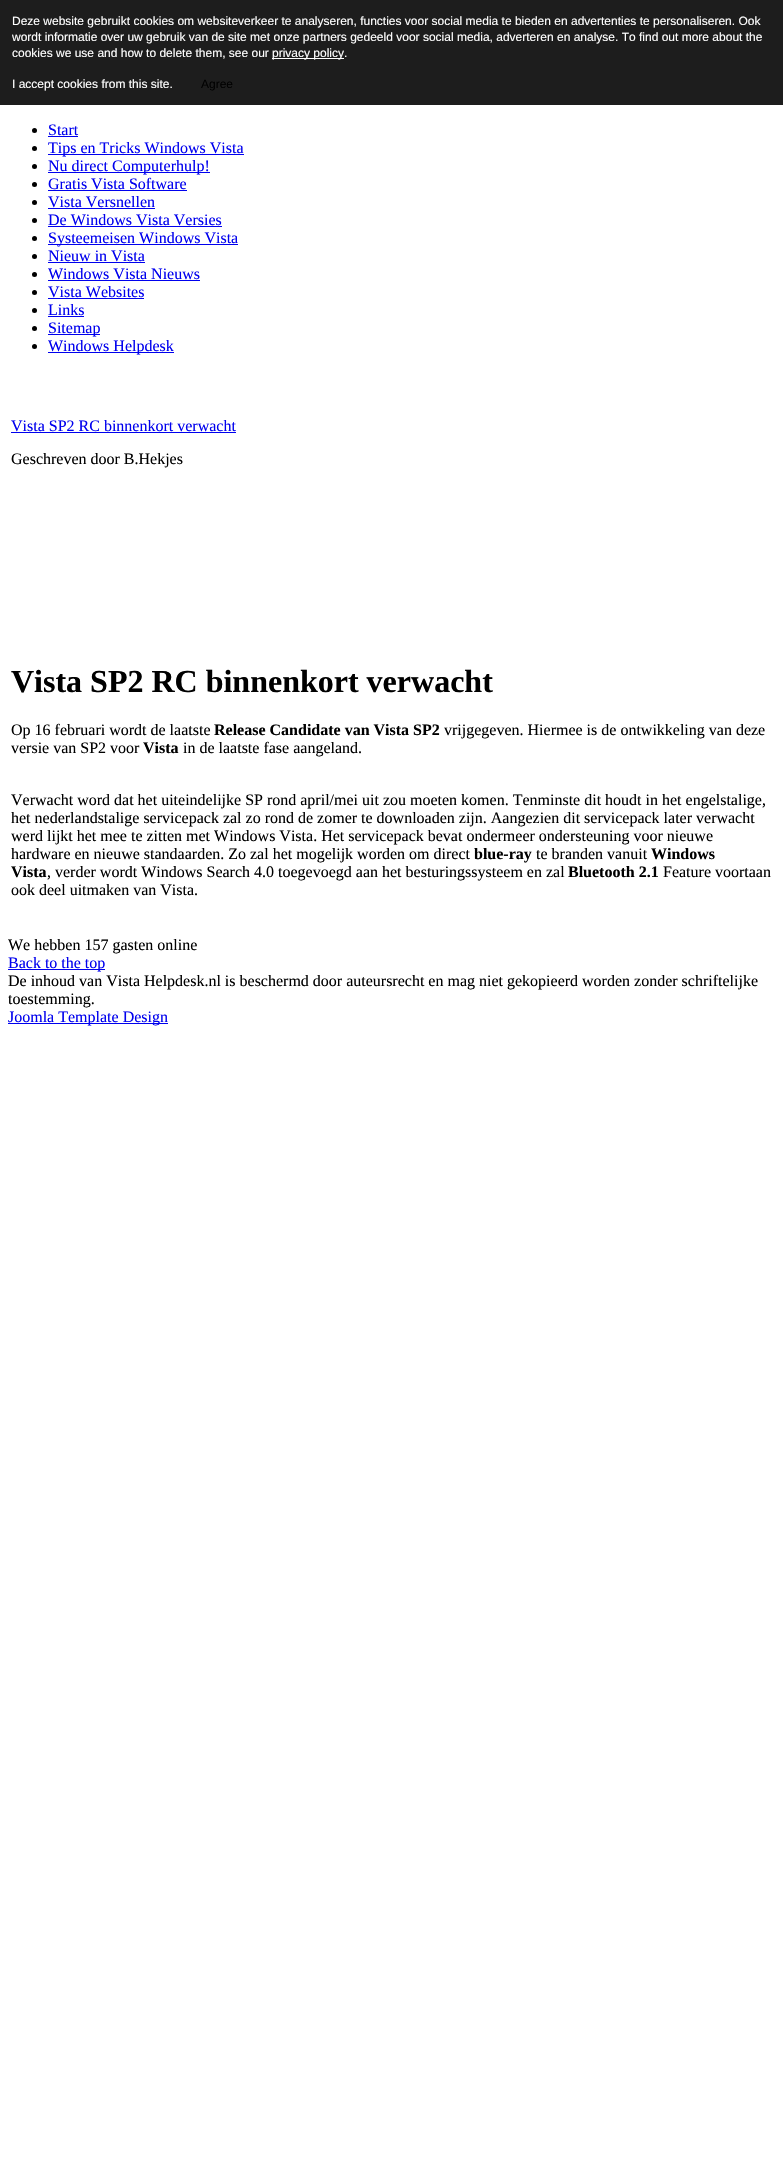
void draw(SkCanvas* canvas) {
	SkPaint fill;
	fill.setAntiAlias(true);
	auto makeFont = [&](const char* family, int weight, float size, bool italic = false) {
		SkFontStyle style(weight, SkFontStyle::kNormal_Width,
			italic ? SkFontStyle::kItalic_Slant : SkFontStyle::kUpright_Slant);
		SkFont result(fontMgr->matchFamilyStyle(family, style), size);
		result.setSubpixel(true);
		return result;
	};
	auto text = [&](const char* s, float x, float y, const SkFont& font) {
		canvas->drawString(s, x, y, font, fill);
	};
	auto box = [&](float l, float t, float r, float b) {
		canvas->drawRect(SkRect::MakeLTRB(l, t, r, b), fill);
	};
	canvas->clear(0xFFFFFFFF);
	fill.setColor(0xFF1D1D1D);
	box(0, 0, 783, 105);
	fill.setColor(0xFFFFFFFF);
	box(272, 58, 344, 59);
	fill.setColor(0xFF000000);
	canvas->drawCircle(34.5f, 130.5f, 2.5f, fill);
	fill.setColor(0xFF0000EE);
	box(48, 136, 78, 137);
	fill.setColor(0xFF000000);
	canvas->drawCircle(34.5f, 148.5f, 2.5f, fill);
	fill.setColor(0xFF0000EE);
	box(48, 154, 244, 155);
	fill.setColor(0xFF000000);
	canvas->drawCircle(34.5f, 166.5f, 2.5f, fill);
	fill.setColor(0xFF0000EE);
	box(48, 172, 210, 173);
	fill.setColor(0xFF000000);
	canvas->drawCircle(34.5f, 184.5f, 2.5f, fill);
	fill.setColor(0xFF0000EE);
	box(48, 190, 187, 191);
	fill.setColor(0xFF000000);
	canvas->drawCircle(34.5f, 202.5f, 2.5f, fill);
	fill.setColor(0xFF0000EE);
	box(48, 208, 155, 209);
	fill.setColor(0xFF000000);
	canvas->drawCircle(34.5f, 220.5f, 2.5f, fill);
	fill.setColor(0xFF0000EE);
	box(48, 226, 222, 227);
	fill.setColor(0xFF000000);
	canvas->drawCircle(34.5f, 238.5f, 2.5f, fill);
	fill.setColor(0xFF0000EE);
	box(48, 244, 238, 245);
	fill.setColor(0xFF000000);
	canvas->drawCircle(34.5f, 256.5f, 2.5f, fill);
	fill.setColor(0xFF0000EE);
	box(48, 262, 145, 263);
	fill.setColor(0xFF000000);
	canvas->drawCircle(34.5f, 274.5f, 2.5f, fill);
	fill.setColor(0xFF0000EE);
	box(48, 280, 200, 281);
	fill.setColor(0xFF000000);
	canvas->drawCircle(34.5f, 292.5f, 2.5f, fill);
	fill.setColor(0xFF0000EE);
	box(48, 298, 144, 299);
	fill.setColor(0xFF000000);
	canvas->drawCircle(34.5f, 310.5f, 2.5f, fill);
	fill.setColor(0xFF0000EE);
	box(48, 316, 84, 317);
	fill.setColor(0xFF000000);
	canvas->drawCircle(34.5f, 328.5f, 2.5f, fill);
	fill.setColor(0xFF0000EE);
	box(48, 334, 100, 335);
	fill.setColor(0xFF000000);
	canvas->drawCircle(34.5f, 346.5f, 2.5f, fill);
	fill.setColor(0xFF0000EE);
	box(48, 352, 174, 353);
	box(11, 432, 236, 433);
	box(8, 969, 105, 970);
	box(8, 1023, 168, 1024);
	auto font1 = makeFont("Liberation Sans", 400, 12);
	fill.setColor(0xFFFFFFFF);
	text("Deze website gebruikt cookies om websiteverkeer te analyseren, functies voor social media te bieden en advertenties te personaliseren. Ook", 12, 25, font1);
	text("wordt informatie over uw gebruik van de site met onze partners gedeeld voor social media, adverteren en analyse. To find out more about the", 12, 41, font1);
	text("cookies we use and how to delete them, see our", 12, 57, font1);
	text("privacy policy.", 272, 57, font1);
	text("I accept cookies from this site.", 12, 88, font1);
	fill.setColor(0xFF000000);
	text("Agree", 201, 88, font1);
	auto font2 = makeFont("Liberation Serif", 400, 16);
	fill.setColor(0xFF0000EE);
	text("Start", 48, 135, font2);
	text("Tips en Tricks Windows Vista", 48, 153, font2);
	text("Nu direct Computerhulp!", 48, 171, font2);
	text("Gratis Vista Software", 48, 189, font2);
	text("Vista Versnellen", 48, 207, font2);
	text("De Windows Vista Versies", 48, 225, font2);
	text("Systeemeisen Windows Vista", 48, 243, font2);
	text("Nieuw in Vista", 48, 261, font2);
	text("Windows Vista Nieuws", 48, 279, font2);
	text("Vista Websites", 48, 297, font2);
	text("Links", 48, 315, font2);
	text("Sitemap", 48, 333, font2);
	text("Windows Helpdesk", 48, 351, font2);
	text("Vista SP2 RC binnenkort verwacht", 11, 431, font2);
	fill.setColor(0xFF000000);
	text("Geschreven door B.Hekjes", 11, 464, font2);
	auto font3 = makeFont("Liberation Serif", 700, 32);
	text("Vista SP2 RC binnenkort verwacht", 11, 692, font3);
	text("Op 16 februari wordt de laatste", 11, 735, font2);
	auto font4 = makeFont("Liberation Serif", 700, 16);
	text("Release Candidate van Vista SP2", 214, 735, font4);
	text("vrijgegeven. Hiermee is de ontwikkeling van deze", 444, 735, font2);
	text("versie van SP2 voor", 11, 753, font2);
	text("Vista", 143, 753, font4);
	text("in de laatste fase aangeland.", 183, 753, font2);
	text("Verwacht word dat het uiteindelijke SP rond april/mei uit zou moeten komen. Tenminste dit houdt in het engelstalige,", 11, 805, font2);
	text("het nederlandstalige servicepack zal zo rond de zomer te downloaden zijn. Aangezien dit servicepack later verwacht", 11, 823, font2);
	text("werd lijkt het mee te zitten met Windows Vista. Het servicepack bevat ondermeer ondersteuning voor nieuwe", 11, 841, font2);
	text("hardware en nieuwe standaarden. Zo zal het mogelijk worden om direct", 11, 859, font2);
	text("blue-ray", 474, 859, font4);
	text("te branden vanuit", 536, 859, font2);
	text("Windows", 651, 859, font4);
	text("Vista", 11, 877, font4);
	text(", verder wordt Windows Search 4.0 toegevoegd aan het besturingssysteem en zal", 47, 877, font2);
	text("Bluetooth 2.1", 568, 877, font4);
	text("Feature voortaan", 663, 877, font2);
	text("ook deel uitmaken van Vista.", 11, 895, font2);
	text("We hebben 157 gasten online", 8, 950, font2);
	fill.setColor(0xFF0000EE);
	text("Back to the top", 8, 968, font2);
	fill.setColor(0xFF000000);
	text("De inhoud van Vista Helpdesk.nl is beschermd door auteursrecht en mag niet gekopieerd worden zonder schriftelijke", 8, 986, font2);
	text("toestemming.", 8, 1004, font2);
	fill.setColor(0xFF0000EE);
	text("Joomla Template Design", 8, 1022, font2);
}
